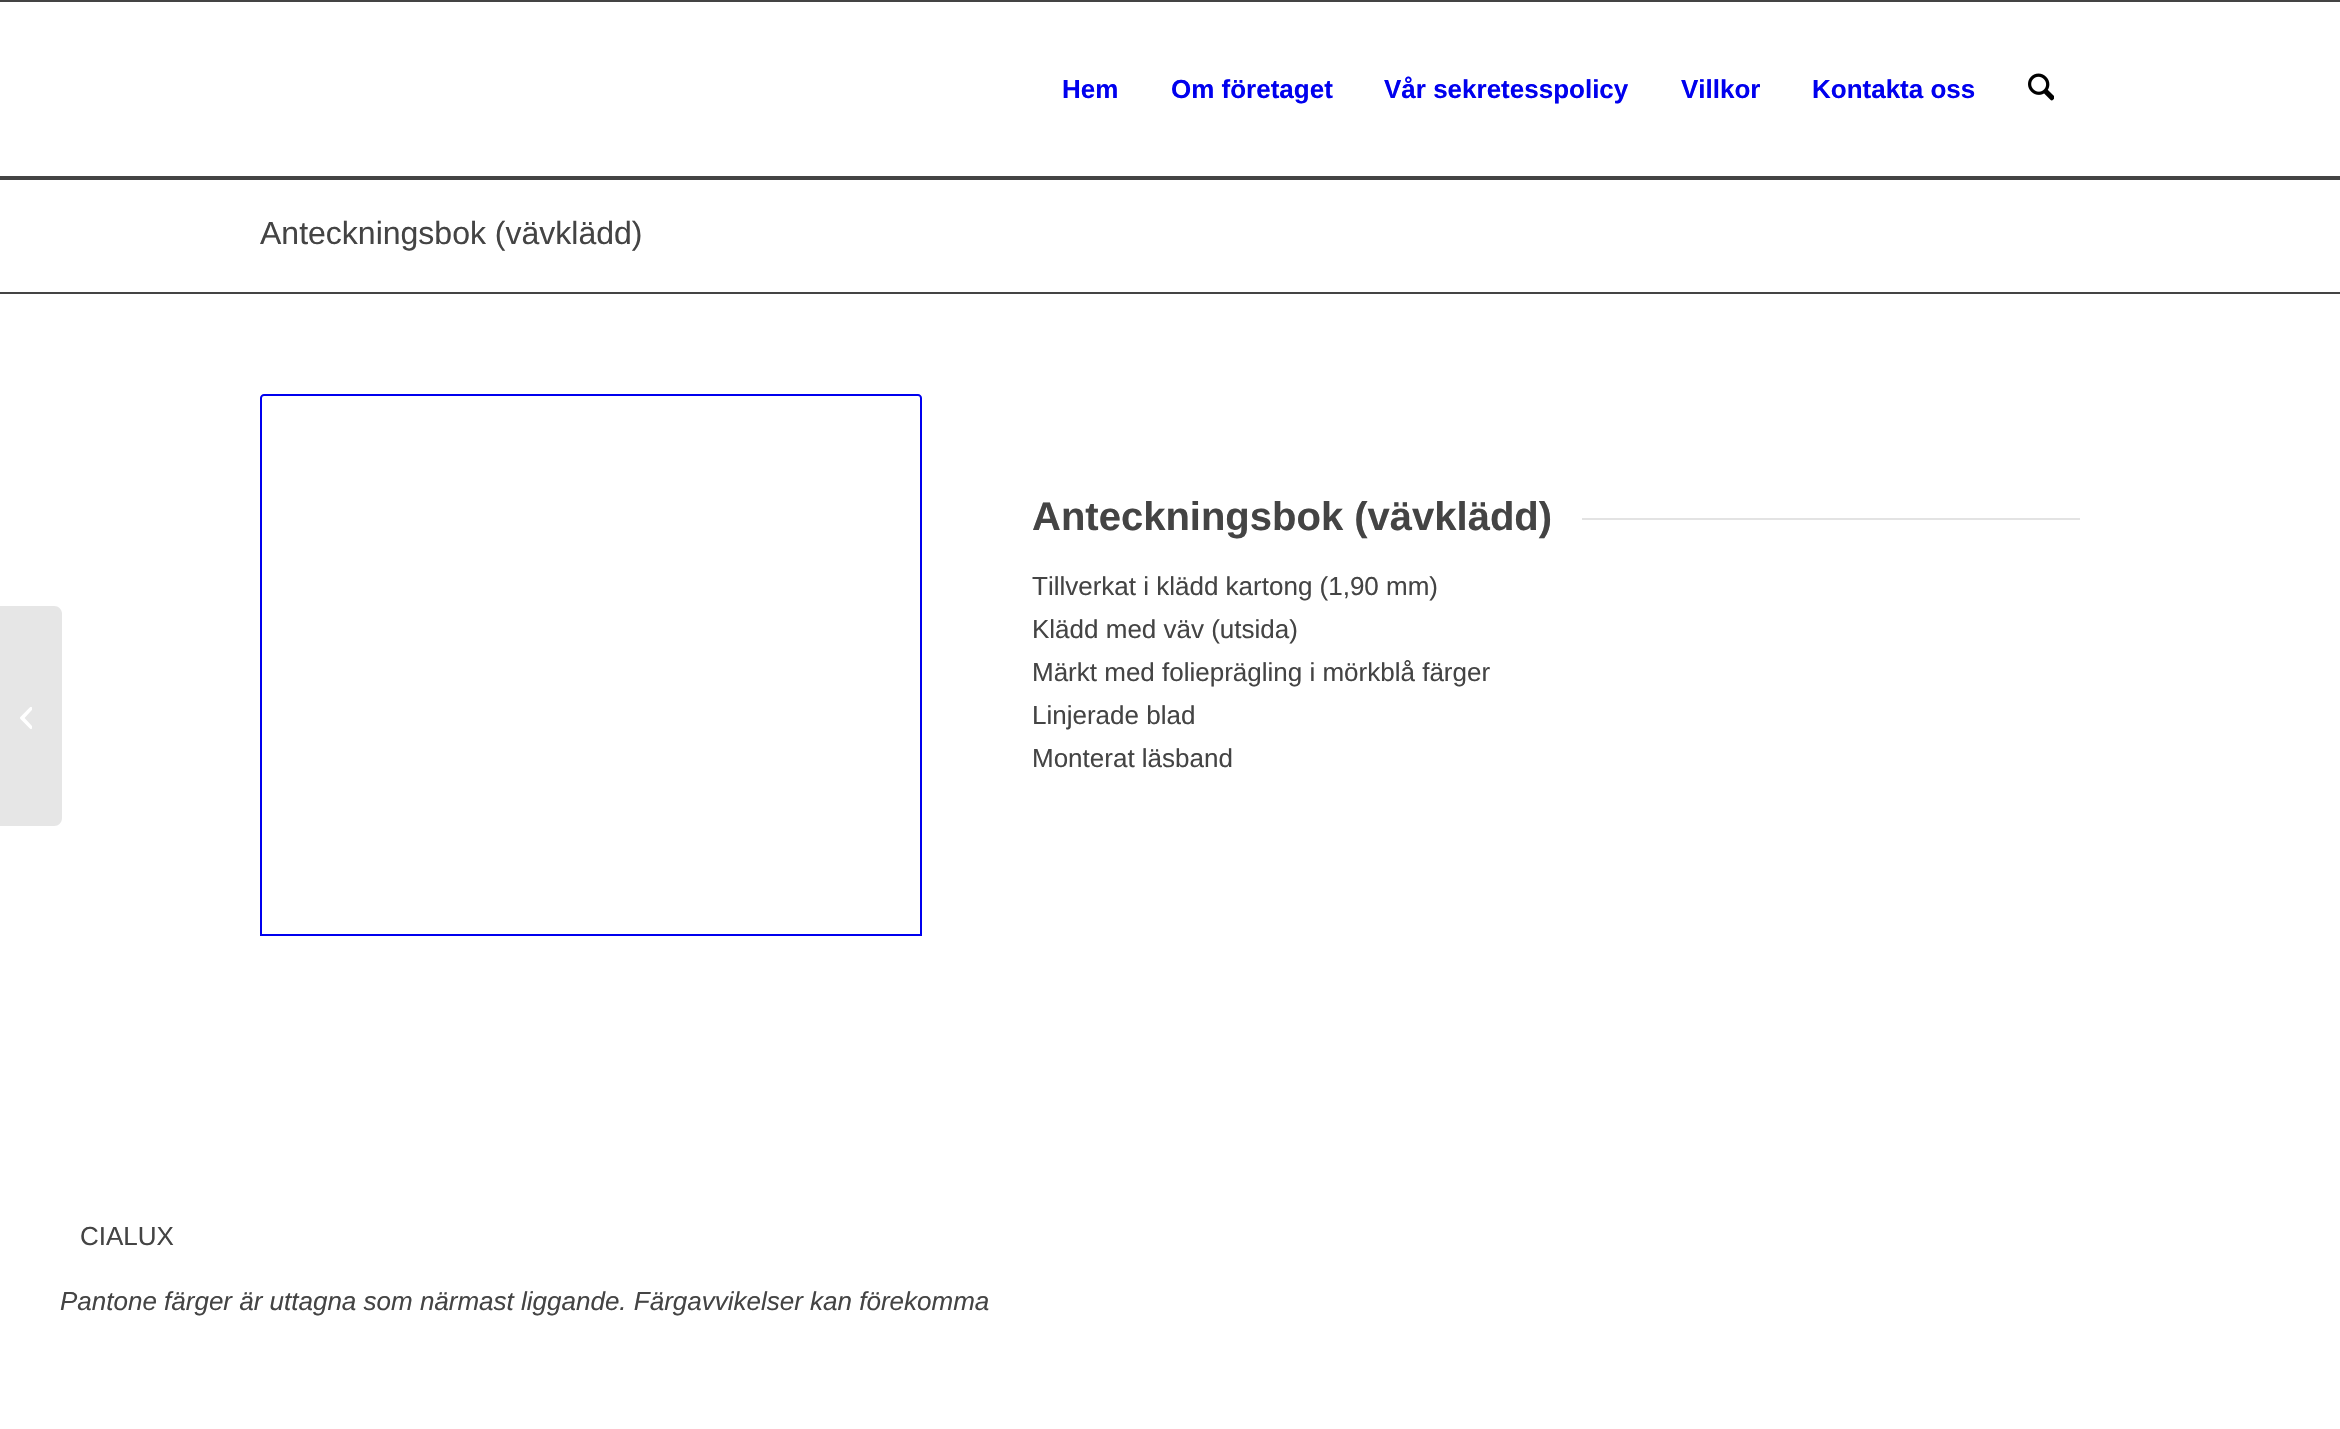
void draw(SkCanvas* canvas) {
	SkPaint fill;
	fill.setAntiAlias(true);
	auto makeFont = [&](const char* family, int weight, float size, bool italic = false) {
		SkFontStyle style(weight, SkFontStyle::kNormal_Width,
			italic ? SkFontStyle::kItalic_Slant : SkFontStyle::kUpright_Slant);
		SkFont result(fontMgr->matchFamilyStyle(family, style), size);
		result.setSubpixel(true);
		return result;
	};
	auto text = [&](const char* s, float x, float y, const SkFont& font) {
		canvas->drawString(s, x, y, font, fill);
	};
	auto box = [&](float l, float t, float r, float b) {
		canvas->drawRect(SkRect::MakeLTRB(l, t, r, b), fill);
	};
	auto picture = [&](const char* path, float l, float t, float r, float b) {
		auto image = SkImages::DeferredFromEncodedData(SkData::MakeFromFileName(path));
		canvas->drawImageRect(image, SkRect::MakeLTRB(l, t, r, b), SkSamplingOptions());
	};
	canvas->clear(0xFFFFFFFF);
	fill.setColor(0xFF444444);
	box(0, 0, 2340, 2);
	picture("image0.png", 2028, 73, 2054, 101);
	fill.setColor(0xFFE6E6E6);
	canvas->drawPath(SkPathBuilder().moveTo(0, 606).lineTo(54, 606).cubicTo(58.5f, 606, 62, 609.5f, 62, 614).lineTo(62, 818).cubicTo(62, 822.5f, 58.5f, 826, 54, 826).lineTo(0, 826).close().detach(), fill);
	picture("image1.png", 20, 707, 32, 729);
	fill.setColor(0xFF444444);
	box(0, 176, 2340, 180);
	box(0, 292, 2340, 294);
	fill.setStyle(SkPaint::kStroke_Style);
	fill.setStrokeWidth(2);
	fill.setColor(0xFF0000EE);
	canvas->drawPath(SkPathBuilder().moveTo(264, 395).lineTo(918, 395).cubicTo(919.5f, 395, 921, 396.5f, 921, 398).lineTo(921, 935).lineTo(261, 935).lineTo(261, 398).cubicTo(261, 396.5f, 262.5f, 395, 264, 395).close().detach(), fill);
	fill.setStyle(SkPaint::kFill_Style);
	fill.setColor(0xFFE3E3E3);
	box(1582, 518, 2080, 520);
	auto font1 = makeFont("Liberation Sans", 700, 26);
	fill.setColor(0xFF0000EE);
	text("Hem", 1062, 98, font1);
	text("Om företaget", 1171, 98, font1);
	text("Vår sekretesspolicy", 1384, 98, font1);
	text("Villkor", 1681, 98, font1);
	text("Kontakta oss", 1812, 98, font1);
	auto font2 = makeFont("Liberation Sans", 400, 32);
	fill.setColor(0xFF444444);
	text("Anteckningsbok (vävklädd)", 260, 244, font2);
	auto font3 = makeFont("Liberation Sans", 700, 40);
	text("Anteckningsbok (vävklädd)", 1032, 530, font3);
	auto font4 = makeFont("Liberation Sans", 400, 26);
	text("Tillverkat i klädd kartong (1,90 mm)", 1032, 595, font4);
	text("Klädd med väv (utsida)", 1032, 638, font4);
	text("Märkt med folieprägling i mörkblå färger", 1032, 681, font4);
	text("Linjerade blad", 1032, 724, font4);
	text("Monterat läsband", 1032, 767, font4);
	text("CIALUX", 80, 1245, font4);
	auto font5 = makeFont("Liberation Sans", 400, 26, true);
	text("Pantone färger är uttagna som närmast liggande. Färgavvikelser kan förekomma", 60, 1310, font5);
}
